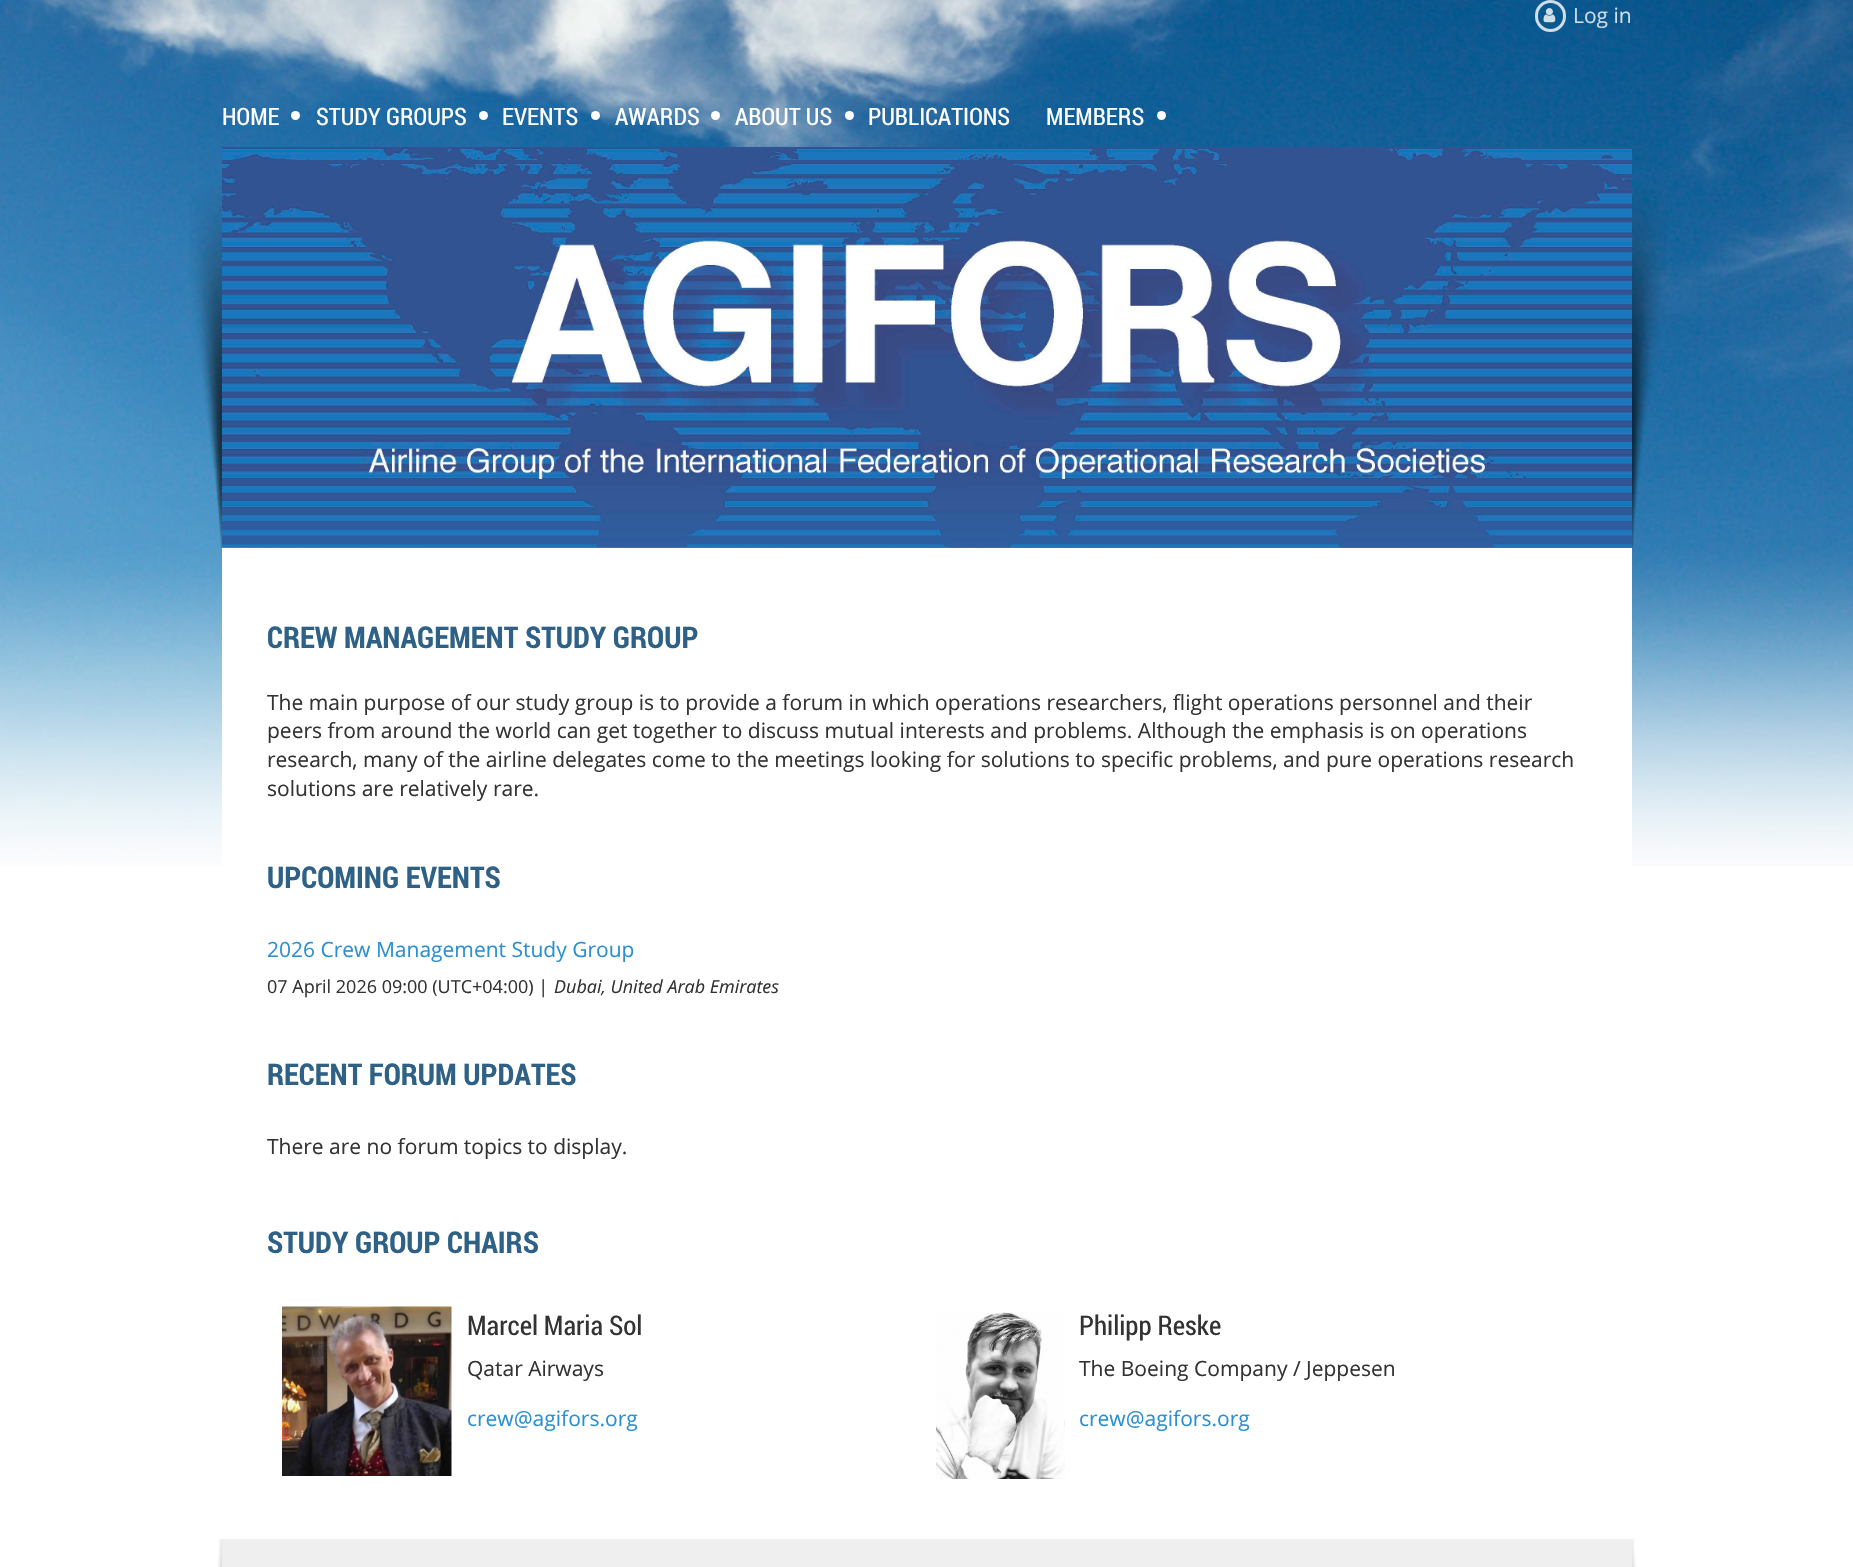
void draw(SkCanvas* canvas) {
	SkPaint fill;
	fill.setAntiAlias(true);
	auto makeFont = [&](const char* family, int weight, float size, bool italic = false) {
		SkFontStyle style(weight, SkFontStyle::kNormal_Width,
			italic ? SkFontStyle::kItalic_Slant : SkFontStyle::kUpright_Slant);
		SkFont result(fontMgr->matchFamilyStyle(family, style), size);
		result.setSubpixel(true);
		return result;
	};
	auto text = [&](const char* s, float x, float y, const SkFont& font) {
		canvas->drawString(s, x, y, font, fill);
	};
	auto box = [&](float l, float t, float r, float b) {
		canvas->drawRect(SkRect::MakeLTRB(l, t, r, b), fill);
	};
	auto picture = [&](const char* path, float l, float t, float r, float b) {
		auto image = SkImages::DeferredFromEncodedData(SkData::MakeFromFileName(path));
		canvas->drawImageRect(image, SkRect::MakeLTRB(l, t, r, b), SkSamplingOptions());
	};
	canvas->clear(0xFFFFFFFF);
	picture("image0.png", 0, 0, 1853, 866);
	fill.setStyle(SkPaint::kStroke_Style);
	fill.setStrokeWidth(3);
	fill.setColor(0xCCFFFFFF);
	canvas->drawRoundRect(SkRect::MakeLTRB(1536.5f, 1.5f, 1564.5f, 30.5f), 14, 14, fill);
	picture("image1.png", 1543, 8, 1556, 23);
	fill.setStyle(SkPaint::kFill_Style);
	fill.setColor(0xFFFFFFFF);
	canvas->drawCircle(295.5f, 115.5f, 4.5f, fill);
	canvas->drawCircle(483.5f, 115.5f, 4.5f, fill);
	canvas->drawCircle(595.5f, 115.5f, 4.5f, fill);
	canvas->drawCircle(715.5f, 115.5f, 4.5f, fill);
	canvas->drawCircle(849.5f, 115.5f, 4.5f, fill);
	canvas->drawCircle(1161.5f, 115.5f, 4.5f, fill);
	picture("image2.png", 189, 185, 222, 548);
	picture("image3.png", 222, 147, 1632, 548);
	picture("image4.png", 1632, 187, 1667, 548);
	box(222, 548, 1632, 866);
	picture("image5.png", 282, 1306, 452, 1476);
	picture("image6.png", 936, 1312, 1065, 1479);
	fill.setColor(0xFFEFEFEF);
	box(222, 1539, 1632, 1567);
	picture("image7.png", 217, 1539, 222, 1567);
	picture("image8.png", 1632, 1539, 1636, 1567);
	auto font1 = makeFont("Open Sans", 400, 21);
	fill.setColor(0xFFCEDEE9);
	text("Log in", 1573, 23, font1);
	auto font2 = makeFont("Roboto Condensed", 400, 24);
	fill.setColor(0xFFFEFEFE);
	text("HOME", 222, 125, font2);
	text("STUDY GROUPS", 316, 125, font2);
	text("EVENTS", 502, 125, font2);
	text("AWARDS", 615, 125, font2);
	text("ABOUT US", 735, 125, font2);
	text("PUBLICATIONS", 868, 125, font2);
	text("MEMBERS", 1046, 125, font2);
	auto font3 = makeFont("Roboto Condensed", 700, 30);
	fill.setColor(0xFF2E6185);
	text("CREW MANAGEMENT STUDY GROUP", 267, 648, font3);
	fill.setColor(0xFF333333);
	text("The main purpose of our study group is to provide a forum in which operations researchers, flight operations personnel and their", 267, 710, font1);
	text("peers from around the world can get together to discuss mutual interests and problems. Although the emphasis is on operations", 267, 738, font1);
	text("research, many of the airline delegates come to the meetings looking for solutions to specific problems, and pure operations research", 267, 767, font1);
	text("solutions are relatively rare.", 267, 796, font1);
	fill.setColor(0xFF2E6185);
	text("UPCOMING EVENTS", 267, 888, font3);
	fill.setColor(0xFF2B90D1);
	text("2026 Crew Management Study Group", 267, 957, font1);
	auto font4 = makeFont("Open Sans", 400, 18);
	fill.setColor(0xFF333333);
	text("07 April 2026 09:00 (UTC+04:00) |", 267, 993, font4);
	auto font5 = makeFont("Open Sans", 400, 18, true);
	text("Dubai, United Arab Emirates", 554, 993, font5);
	fill.setColor(0xFF2E6185);
	text("RECENT FORUM UPDATES", 267, 1085, font3);
	fill.setColor(0xFF333333);
	text("There are no forum topics to display.", 267, 1154, font1);
	fill.setColor(0xFF2E6185);
	text("STUDY GROUP CHAIRS", 267, 1253, font3);
	auto font6 = makeFont("Roboto Condensed", 400, 27);
	fill.setColor(0xFF333333);
	text("Marcel Maria Sol", 467, 1335, font6);
	text("Qatar Airways", 467, 1376, font1);
	fill.setColor(0xFF2B90D1);
	text("crew@agifors.org", 467, 1426, font1);
	fill.setColor(0xFF333333);
	text("Philipp Reske", 1079, 1335, font6);
	text("The Boeing Company / Jeppesen", 1079, 1376, font1);
	fill.setColor(0xFF2B90D1);
	text("crew@agifors.org", 1079, 1426, font1);
}
